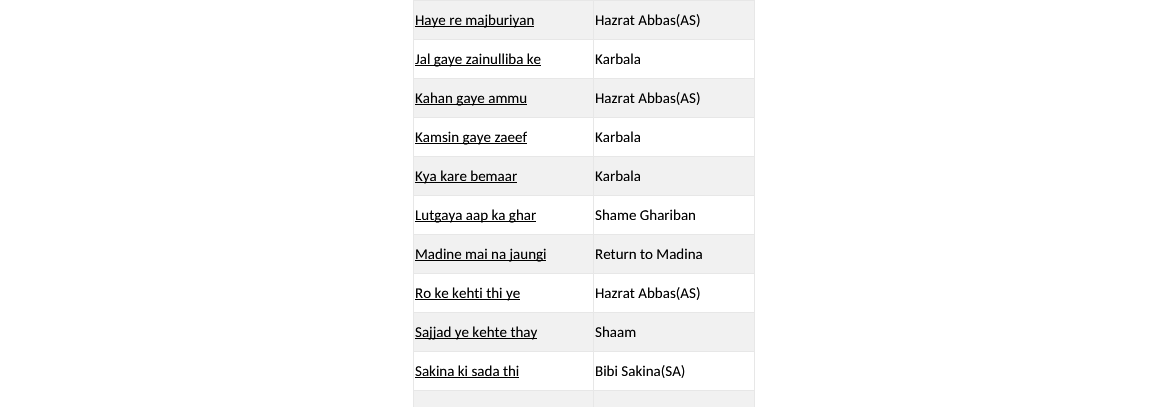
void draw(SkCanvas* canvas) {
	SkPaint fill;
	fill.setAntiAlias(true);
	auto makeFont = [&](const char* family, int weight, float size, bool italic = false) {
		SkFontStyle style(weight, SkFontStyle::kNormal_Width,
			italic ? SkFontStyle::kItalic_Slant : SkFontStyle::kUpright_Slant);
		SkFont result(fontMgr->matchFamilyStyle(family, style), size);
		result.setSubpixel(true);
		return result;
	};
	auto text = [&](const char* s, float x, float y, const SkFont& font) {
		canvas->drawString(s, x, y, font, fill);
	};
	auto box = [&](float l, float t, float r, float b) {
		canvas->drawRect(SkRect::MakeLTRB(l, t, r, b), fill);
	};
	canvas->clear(0xFFFFFFFF);
	fill.setColor(0xFFE7E7E7);
	box(754, 0, 755, 407);
	box(413, 0, 414, 407);
	fill.setColor(0xFFF1F1F1);
	box(414, 1, 754, 39);
	fill.setColor(0xFFE7E7E7);
	box(593, 0, 755, 1);
	box(593, 39, 755, 40);
	box(593, 78, 755, 79);
	fill.setColor(0xFFF1F1F1);
	box(414, 79, 754, 117);
	fill.setColor(0xFFE7E7E7);
	box(593, 117, 755, 118);
	box(593, 156, 755, 157);
	fill.setColor(0xFFF1F1F1);
	box(414, 157, 754, 195);
	fill.setColor(0xFFE7E7E7);
	box(593, 195, 755, 196);
	box(593, 234, 755, 235);
	fill.setColor(0xFFF1F1F1);
	box(414, 235, 754, 273);
	fill.setColor(0xFFE7E7E7);
	box(593, 273, 755, 274);
	box(593, 312, 755, 313);
	fill.setColor(0xFFF1F1F1);
	box(414, 313, 754, 351);
	fill.setColor(0xFFE7E7E7);
	box(593, 351, 755, 352);
	box(593, 390, 755, 391);
	fill.setColor(0xFFF1F1F1);
	box(414, 391, 754, 407);
	fill.setColor(0xFFE7E7E7);
	box(593, 390, 594, 407);
	box(413, 390, 594, 391);
	box(593, 351, 594, 391);
	box(413, 351, 594, 352);
	box(593, 312, 594, 352);
	box(413, 312, 594, 313);
	box(593, 273, 594, 313);
	box(413, 273, 594, 274);
	box(593, 234, 594, 274);
	box(413, 234, 594, 235);
	box(593, 195, 594, 235);
	box(413, 195, 594, 196);
	box(593, 156, 594, 196);
	box(413, 156, 594, 157);
	box(593, 117, 594, 157);
	box(413, 117, 594, 118);
	box(593, 78, 594, 118);
	box(413, 78, 594, 79);
	box(593, 39, 594, 79);
	box(413, 39, 594, 40);
	box(593, 0, 594, 40);
	box(413, 0, 594, 1);
	fill.setColor(0xFF000000);
	box(415, 26, 534, 27);
	box(415, 65, 541, 66);
	box(415, 104, 527, 105);
	box(415, 143, 527, 144);
	box(415, 182, 517, 183);
	box(415, 221, 536, 222);
	box(415, 260, 546, 261);
	box(415, 299, 520, 300);
	box(415, 338, 537, 339);
	box(415, 377, 519, 378);
	auto font1 = makeFont("Carlito", 400, 15);
	text("Haye re majburiyan", 415, 25, font1);
	text("Hazrat Abbas(AS)", 595, 25, font1);
	text("Jal gaye zainulliba ke", 415, 64, font1);
	text("Karbala", 595, 64, font1);
	text("Kahan gaye ammu", 415, 103, font1);
	text("Hazrat Abbas(AS)", 595, 103, font1);
	text("Kamsin gaye zaeef", 415, 142, font1);
	text("Karbala", 595, 142, font1);
	text("Kya kare bemaar", 415, 181, font1);
	text("Karbala", 595, 181, font1);
	text("Lutgaya aap ka ghar", 415, 220, font1);
	text("Shame Ghariban", 595, 220, font1);
	text("Madine mai na jaungi", 415, 259, font1);
	text("Return to Madina", 595, 259, font1);
	text("Ro ke kehti thi ye", 415, 298, font1);
	text("Hazrat Abbas(AS)", 595, 298, font1);
	text("Sajjad ye kehte thay", 415, 337, font1);
	text("Shaam", 595, 337, font1);
	text("Sakina ki sada thi", 415, 376, font1);
	text("Bibi Sakina(SA)", 595, 376, font1);
}
